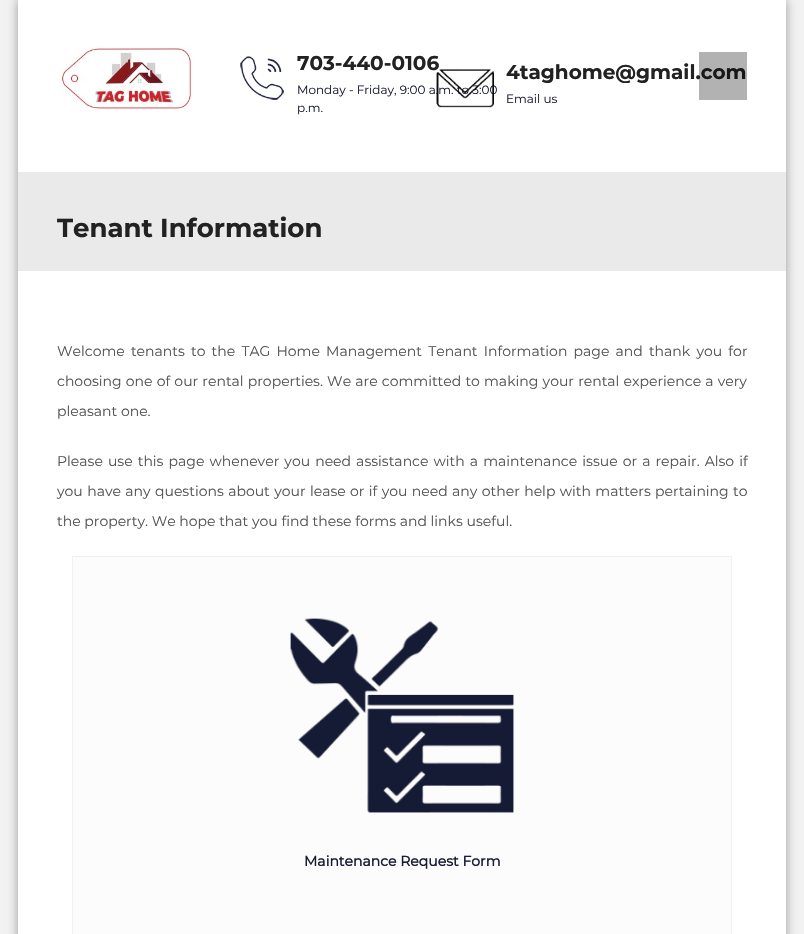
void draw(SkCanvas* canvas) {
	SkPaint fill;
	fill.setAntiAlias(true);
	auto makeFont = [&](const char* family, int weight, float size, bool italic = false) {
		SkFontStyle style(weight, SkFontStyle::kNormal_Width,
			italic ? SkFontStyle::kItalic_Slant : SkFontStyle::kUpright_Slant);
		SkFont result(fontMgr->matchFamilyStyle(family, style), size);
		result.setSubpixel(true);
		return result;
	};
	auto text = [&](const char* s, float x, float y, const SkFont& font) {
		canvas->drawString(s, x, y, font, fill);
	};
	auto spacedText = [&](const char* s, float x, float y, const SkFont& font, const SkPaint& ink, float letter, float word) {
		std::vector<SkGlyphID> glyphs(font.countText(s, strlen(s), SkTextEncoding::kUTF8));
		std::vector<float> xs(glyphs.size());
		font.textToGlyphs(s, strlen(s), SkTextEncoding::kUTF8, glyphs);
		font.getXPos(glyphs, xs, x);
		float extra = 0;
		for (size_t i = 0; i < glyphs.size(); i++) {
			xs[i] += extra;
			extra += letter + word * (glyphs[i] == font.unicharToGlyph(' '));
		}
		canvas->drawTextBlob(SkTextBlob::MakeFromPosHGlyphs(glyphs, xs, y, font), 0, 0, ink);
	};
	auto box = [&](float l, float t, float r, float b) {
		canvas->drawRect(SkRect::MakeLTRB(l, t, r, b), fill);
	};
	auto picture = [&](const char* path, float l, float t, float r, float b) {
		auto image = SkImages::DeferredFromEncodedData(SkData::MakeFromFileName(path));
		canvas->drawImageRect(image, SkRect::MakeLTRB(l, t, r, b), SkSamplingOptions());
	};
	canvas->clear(0xFFF2F2F2);
	fill.setColor(0xFF999999);
	fill.setMaskFilter(SkMaskFilter::MakeBlur(kNormal_SkBlurStyle, 5));
	canvas->drawRect(SkRect::MakeLTRB(18, 0, 786, 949), fill);
	fill.setMaskFilter(nullptr);
	fill.setColor(0xFFFFFFFF);
	box(18, 0, 786, 934);
	picture("image0.png", 59, 46, 192, 111);
	picture("image1.png", 240, 56, 284, 100);
	fill.setColor(0xFFEAEAEA);
	box(18, 172, 786, 271);
	fill.setColor(0xFFFCFCFC);
	canvas->drawRect(SkRect::MakeLTRB(72.5f, 556.5f, 731.5f, 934.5f), fill);
	fill.setStyle(SkPaint::kStroke_Style);
	fill.setStrokeWidth(1);
	fill.setColor(0xFFF1F1F1);
	canvas->drawRect(SkRect::MakeLTRB(72.5f, 556.5f, 731.5f, 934.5f), fill);
	picture("image3.png", 290, 618, 514, 813);
	auto font1 = makeFont("Montserrat", 700, 20);
	fill.setStyle(SkPaint::kFill_Style);
	fill.setColor(0xFF222222);
	text("703-440-0106", 297, 70, font1);
	auto font2 = makeFont("Montserrat", 400, 12);
	fill.setColor(0xFF191C34);
	text("Monday - Friday, 9:00 a.m. to 3:00", 297, 94, font2);
	text("p.m.", 297, 112, font2);
	picture("image2.png", 436, 69, 494, 108);
	fill.setColor(0xFF222222);
	text("4taghome@gmail.com", 506, 79, font1);
	fill.setColor(0x4D000000);
	box(699, 52, 747, 100);
	fill.setColor(0xFF191C34);
	text("Email us", 506, 103, font2);
	auto font3 = makeFont("Montserrat", 700, 26);
	fill.setColor(0xFF222222);
	text("Tenant Information", 57, 237, font3);
	auto font4 = makeFont("Montserrat", 400, 14);
	fill.setColor(0xFF545454);
	spacedText("Welcome tenants to the TAG Home Management Tenant Information page and thank you for", 57, 356, font4, fill, 0, 2.5f);
	spacedText("choosing one of our rental properties. We are committed to making your rental experience a very", 57, 386, font4, fill, 0, 0.5f);
	text("pleasant one.", 57, 416, font4);
	spacedText("Please use this page whenever you need assistance with a maintenance issue or a repair. Also if", 57, 466, font4, fill, 0, 1.4f);
	spacedText("you have any questions about your lease or if you need any other help with matters pertaining to", 57, 496, font4, fill, 0, 0.7f);
	text("the property. We hope that you find these forms and links useful.", 57, 526, font4);
	auto font5 = makeFont("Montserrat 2", 700, 14);
	fill.setColor(0xFF191C34);
	text("Maintenance Request Form", 304, 866, font5);
}
